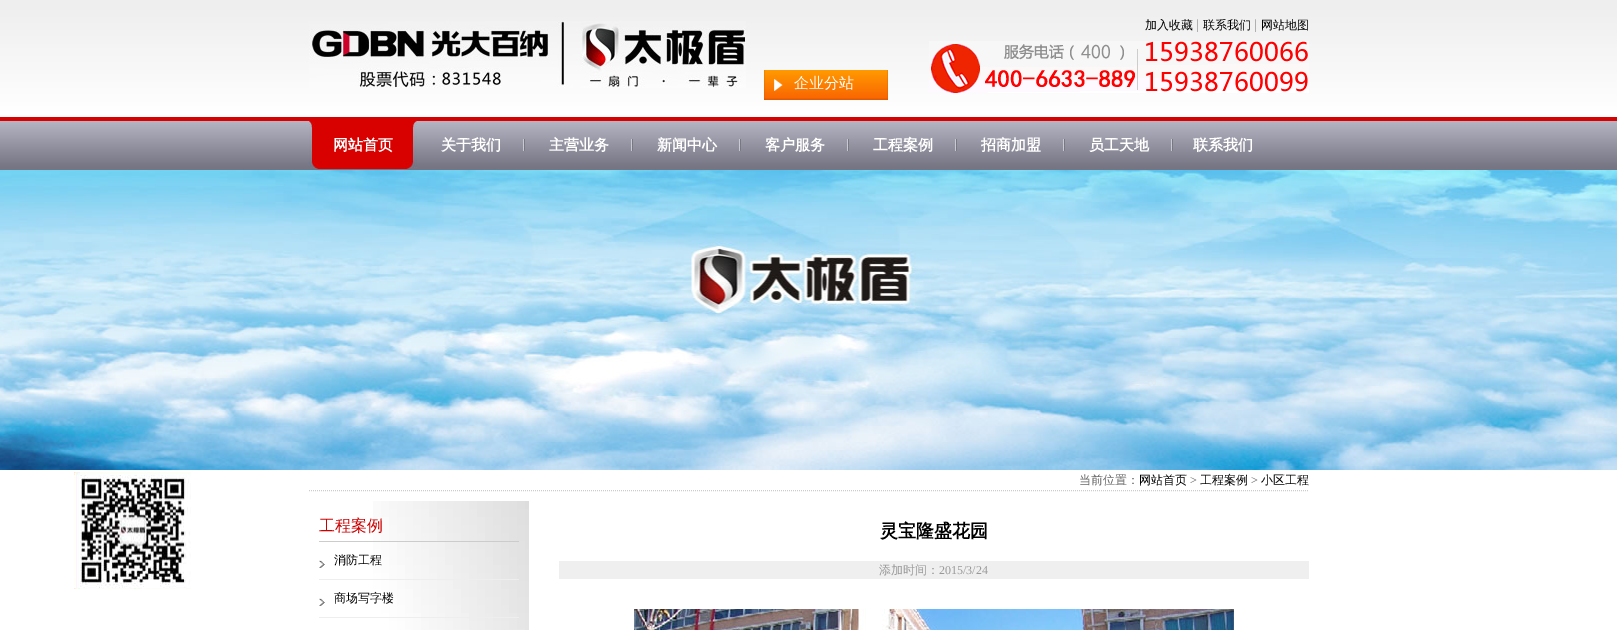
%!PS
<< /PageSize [1617 630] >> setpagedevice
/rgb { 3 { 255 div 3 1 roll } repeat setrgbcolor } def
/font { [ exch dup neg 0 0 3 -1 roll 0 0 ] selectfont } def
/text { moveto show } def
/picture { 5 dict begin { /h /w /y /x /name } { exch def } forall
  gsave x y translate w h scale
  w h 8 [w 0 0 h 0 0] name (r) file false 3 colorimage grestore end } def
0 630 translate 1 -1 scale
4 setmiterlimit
255 255 255 rgb
0 0 1617 630 rectfill
(img_01.rgb) 0 0 1617 170 picture
(img_02.rgb) 309 21 437 67 picture
(img_03.rgb) 764 70 124 30 picture
(img_04.rgb) 929 41 380 52 picture
(img_05.rgb) 309 120 108 49 picture
(img_06.rgb) 523 139 2 12 picture
(img_06.rgb) 631 139 2 12 picture
(img_06.rgb) 739 139 2 12 picture
(img_06.rgb) 847 139 2 12 picture
(img_06.rgb) 955 139 2 12 picture
(img_06.rgb) 1063 139 2 12 picture
(img_06.rgb) 1171 139 2 12 picture
(img_07.rgb) 0 170 1617 300 picture
(img_08.rgb) 74 472 117 117 picture
204 204 204 rgb
[1 1] 0 setdash
309 490.5 moveto 1000 0 rlineto stroke
(img_09.rgb) 373 501 156 129 picture
319 541 200 1 rectfill
(img_10.rgb) 319 560 6 8 picture
238 238 238 rgb
319 579 200 1 rectfill
(img_10.rgb) 319 598 6 8 picture
319 617 200 1 rectfill
239 239 239 rgb
559 561 750 18 rectfill
(img_11.rgb) 634 609 600 21 picture
/WenQuanYiZenHei-Medium 15 font
255 255 255 rgb
(企业分站) 794 88 text
/WenQuanYiZenHei-Medium 12 font
0 0 0 rgb
(加入收藏) 1145 29 text
/LiberationSerif-Regular 14 font
153 153 153 rgb
(|) 1196 29 text
/WenQuanYiZenHei-Medium 12 font
0 0 0 rgb
(联系我们) 1203 29 text
/LiberationSerif-Regular 14 font
153 153 153 rgb
(|) 1254 29 text
/WenQuanYiZenHei-Medium 12 font
0 0 0 rgb
(网站地图) 1261 29 text
/WenQuanYiZenHei-Bold 15 font
255 255 255 rgb
(网站首页) 333 150 text
(关于我们) 441 150 text
(主营业务) 549 150 text
(新闻中心) 657 150 text
(客户服务) 765 150 text
(工程案例) 873 150 text
(招商加盟) 981 150 text
(员工天地) 1089 150 text
(联系我们) 1193 150 text
/WenQuanYiZenHei-Medium 12 font
102 102 102 rgb
(当前位置：) 1079 484 text
0 0 0 rgb
(网站首页) 1139 484 text
/LiberationSerif-Regular 12 font
102 102 102 rgb
(>) 1190 484 text
/WenQuanYiZenHei-Medium 12 font
0 0 0 rgb
(工程案例) 1200 484 text
/LiberationSerif-Regular 12 font
102 102 102 rgb
(>) 1251 484 text
/WenQuanYiZenHei-Medium 12 font
0 0 0 rgb
(小区工程) 1261 484 text
/WenQuanYiZenHei-Medium 16 font
204 0 0 rgb
(工程案例) 319 531 text
/WenQuanYiZenHei-Medium 12 font
0 0 0 rgb
(消防工程) 334 564 text
(商场写字楼) 334 602 text
/WenQuanYiZenHei-Bold 18 font
(灵宝隆盛花园) 880 537 text
/WenQuanYiZenHei-Medium 12 font
153 153 153 rgb
(添加时间：) 879 574 text
/LiberationSerif-Regular 12 font
(2015/3/24) 939 574 text
showpage
